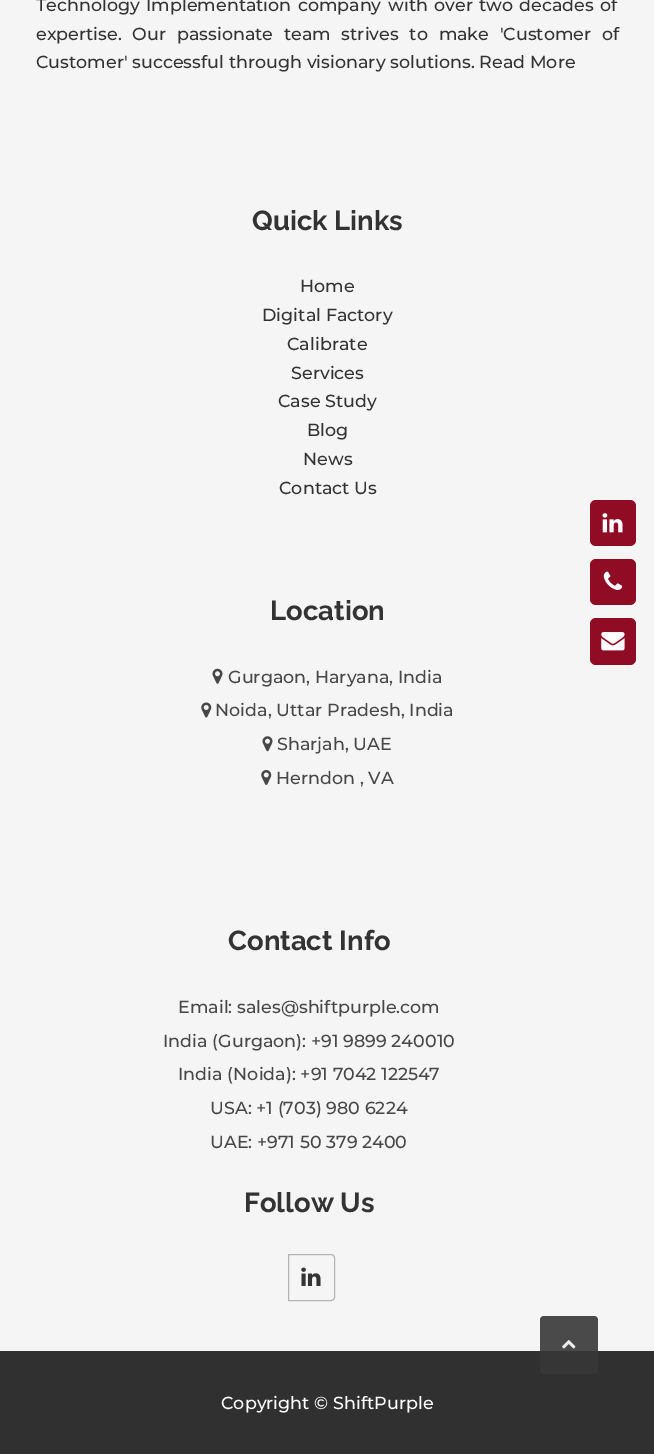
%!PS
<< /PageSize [654 1454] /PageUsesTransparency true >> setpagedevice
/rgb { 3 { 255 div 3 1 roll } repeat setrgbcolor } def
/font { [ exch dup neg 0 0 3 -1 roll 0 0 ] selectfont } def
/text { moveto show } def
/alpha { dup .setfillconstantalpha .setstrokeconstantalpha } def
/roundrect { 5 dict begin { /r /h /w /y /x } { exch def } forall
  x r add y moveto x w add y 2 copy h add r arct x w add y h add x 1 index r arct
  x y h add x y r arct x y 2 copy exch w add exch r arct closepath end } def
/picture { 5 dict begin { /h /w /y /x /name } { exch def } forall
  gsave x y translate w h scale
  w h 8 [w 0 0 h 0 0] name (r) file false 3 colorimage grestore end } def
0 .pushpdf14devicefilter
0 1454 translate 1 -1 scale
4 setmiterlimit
48 48 48 rgb
0 0 654 1454 rectfill
245 245 245 rgb
0 0 654 1351 rectfill
(img_01.rgb) 212 668 11 16 picture
(img_02.rgb) 201 702 11 16 picture
(img_03.rgb) 262 736 11 16 picture
(img_04.rgb) 261 770 11 15 picture
144 12 36 rgb
590 500 46 46 6 roundrect fill
(img_05.rgb) 602 513 21 20 picture
590 559 46 46 6 roundrect fill
(img_06.rgb) 603 571 20 19 picture
590 618 46 47 6 roundrect fill
(img_07.rgb) 601 632 24 19 picture
180 180 180 rgb
288.5 1254.5 moveto 42.5 0 rlineto 2 0 3.5 1.5 3.5 3.5 rcurveto 0 39 rlineto 0 2 -1.5 3.5 -3.5 3.5 rcurveto -42.5 0 rlineto closepath stroke
(img_08.rgb) 301 1267 20 19 picture
0.9 alpha
55 55 55 rgb
540 1316 58 58 4 roundrect fill
1 alpha
(img_09.rgb) 562 1340 14 9 picture
/Montserrat-Medium 17.5 font
51 51 51 rgb
36 11 moveto 1.5 0 32 (Technology Implementation company) widthshow
388 11 moveto 1.5 0 32 (with over two decades of) widthshow
36 40 moveto 6 0 32 (expertise. Our passionate team strives to make 'Customer of) widthshow
(Customer' successful through visionary solutions. Read More) 36 68 text
/Raleway-Bold 27.5 font
(Quick Links) 252 230 text
/Montserrat-Medium 17.5 font
(Home) 300 292 text
(Digital Factory) 262 321 text
(Calibrate) 287 350 text
(Services) 291 379 text
(Case Study) 278 407 text
(Blog) 307 436 text
(News) 303 465 text
(Contact Us) 279 494 text
/Raleway-Bold 27.5 font
(Location) 270 620 text
/Montserrat-Medium 17.5 font
71 71 71 rgb
(Gurgaon, Haryana, India) 228 683 text
(Noida, Uttar Pradesh, India) 215 716 text
(Sharjah, UAE) 277 750 text
(Herndon , VA) 276 784 text
/Raleway-Bold 27.5 font
51 51 51 rgb
(Contact Info) 228 950 text
/Montserrat-Medium 17.5 font
71 71 71 rgb
(Email: sales@shiftpurple.com) 178 1013 text
(India \(Gurgaon\): +91 9899 240010) 163 1047 text
(India \(Noida\): +91 7042 122547) 178 1080 text
(USA: +1 \(703\) 980 6224) 210 1114 text
(UAE: +971 50 379 2400) 210 1148 text
/Raleway-Bold 27.5 font
51 51 51 rgb
(Follow Us) 244 1212 text
/Montserrat-Medium 17.5 font
255 255 255 rgb
(Copyright © ShiftPurple) 221 1409 text
.poppdf14devicefilter showpage
